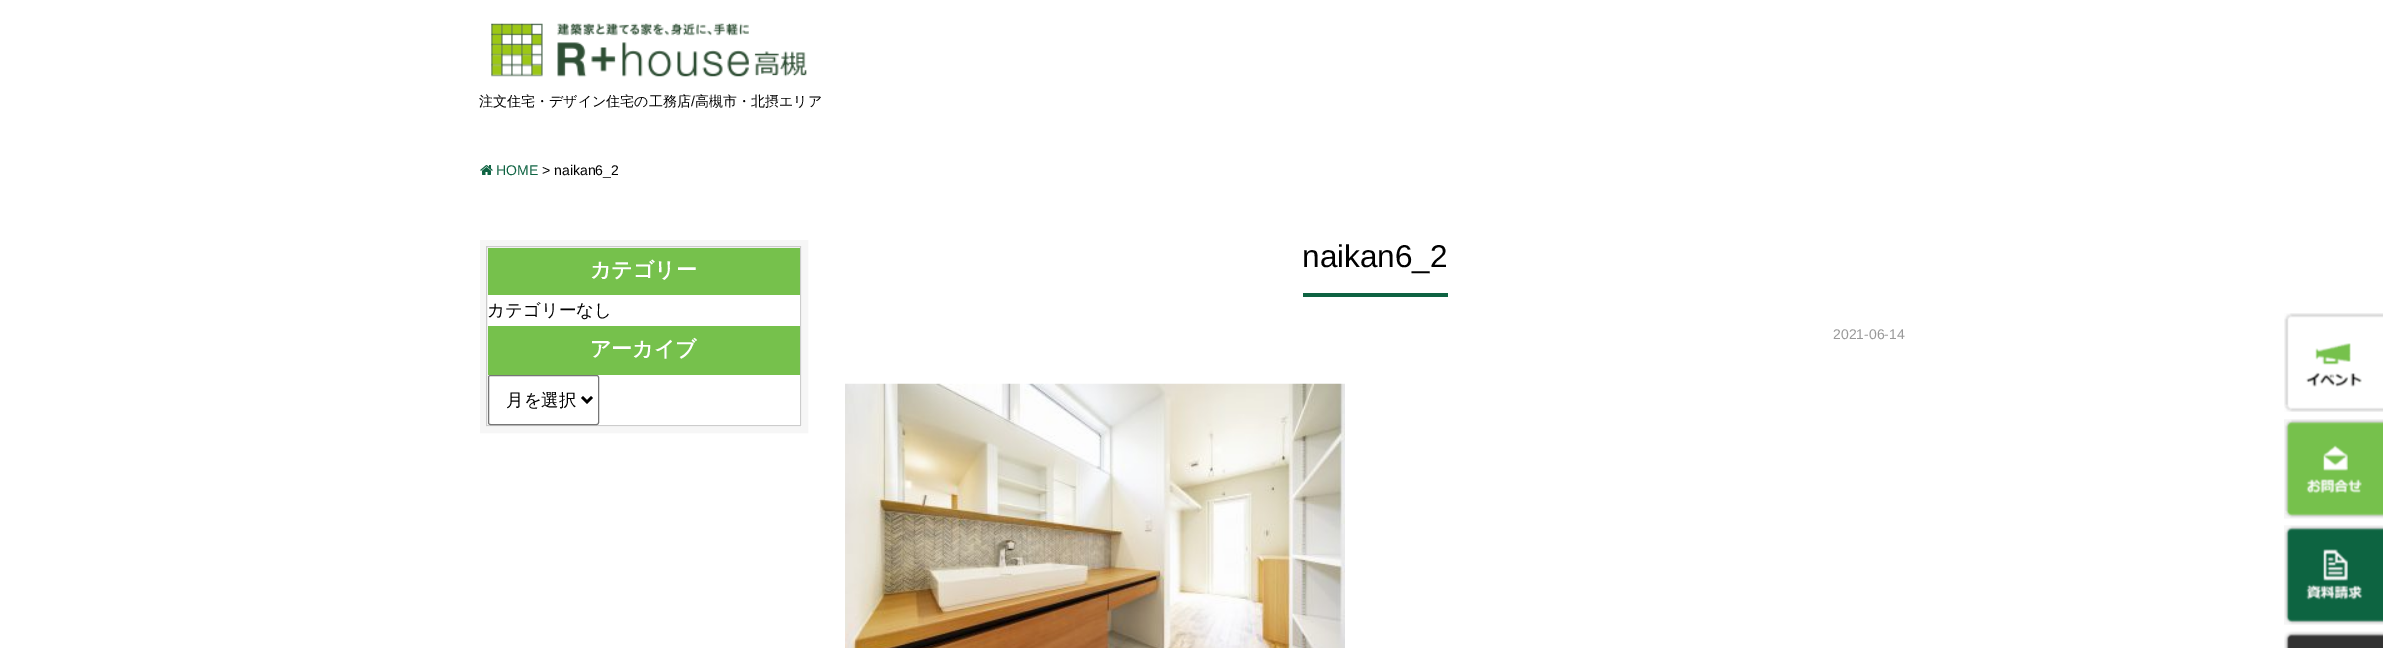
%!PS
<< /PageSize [2383 648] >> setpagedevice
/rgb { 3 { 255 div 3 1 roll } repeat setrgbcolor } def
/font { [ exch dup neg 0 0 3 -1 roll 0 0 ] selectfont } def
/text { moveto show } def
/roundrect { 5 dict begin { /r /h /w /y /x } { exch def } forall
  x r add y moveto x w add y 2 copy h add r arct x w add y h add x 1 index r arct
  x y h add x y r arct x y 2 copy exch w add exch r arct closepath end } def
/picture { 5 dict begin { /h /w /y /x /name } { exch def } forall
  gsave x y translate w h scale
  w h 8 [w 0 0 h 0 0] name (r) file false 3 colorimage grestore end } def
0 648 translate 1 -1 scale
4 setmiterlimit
255 255 255 rgb
0 0 2383 648 rectfill
(img_01.rgb) 491 23 316 54 picture
(img_02.rgb) 480 165 13 10 picture
246 246 246 rgb
6 setlinewidth
483 243 322 187 rectstroke
204 204 204 rgb
1 setlinewidth
486.5 246.5 314 179 rectstroke
118 193 76 rgb
488 248 312 47 rectfill
488 326 312 49 rectfill
118 118 118 rgb
488.5 375.5 110 49 2 roundrect stroke
0 0 0 rgb
2.5 setlinewidth
582 397 moveto 5 5 rlineto 5 -5 rlineto stroke
14 99 66 rgb
1303 293 145 4 rectfill
(img_03.rgb) 845 383 500 265 picture
(img_04.rgb) 2284 313 99 99 picture
(img_08.rgb) 2328 451 20 12 picture
(img_05.rgb) 2284 419 99 100 picture
(img_06.rgb) 2284 525 99 100 picture
(img_07.rgb) 2284 631 99 17 picture
/WenQuanYiZenHei-Medium 14 font
0 0 0 rgb
(注文住宅・デザイン住宅の工務店) 479 106 text
/LiberationSans-Regular 14 font
(/) 691 106 text
/WenQuanYiZenHei-Medium 14 font
(高槻市・北摂エリア) 695 106 text
/LiberationSans-Regular 14 font
14 99 66 rgb
(HOME) 496 175 text
0 0 0 rgb
(> naikan6_2) 542 175 text
/WenQuanYiZenHei-Bold 21 font
255 255 255 rgb
(カテゴリー) 590 277 text
/WenQuanYiZenHei-Medium 17.5 font
0 0 0 rgb
(カテゴリーなし) 487 316 text
/WenQuanYiZenHei-Bold 21 font
255 255 255 rgb
(アーカイブ) 590 356 text
/WenQuanYiZenHei-Medium 17.5 font
0 0 0 rgb
(月を選択) 506 406 text
/LiberationSans-Regular 31.5 font
(naikan6_2) 1302 267 text
/LiberationSans-Regular 14 font
153 153 153 rgb
(2021-06-14) 1833 339 text
showpage
